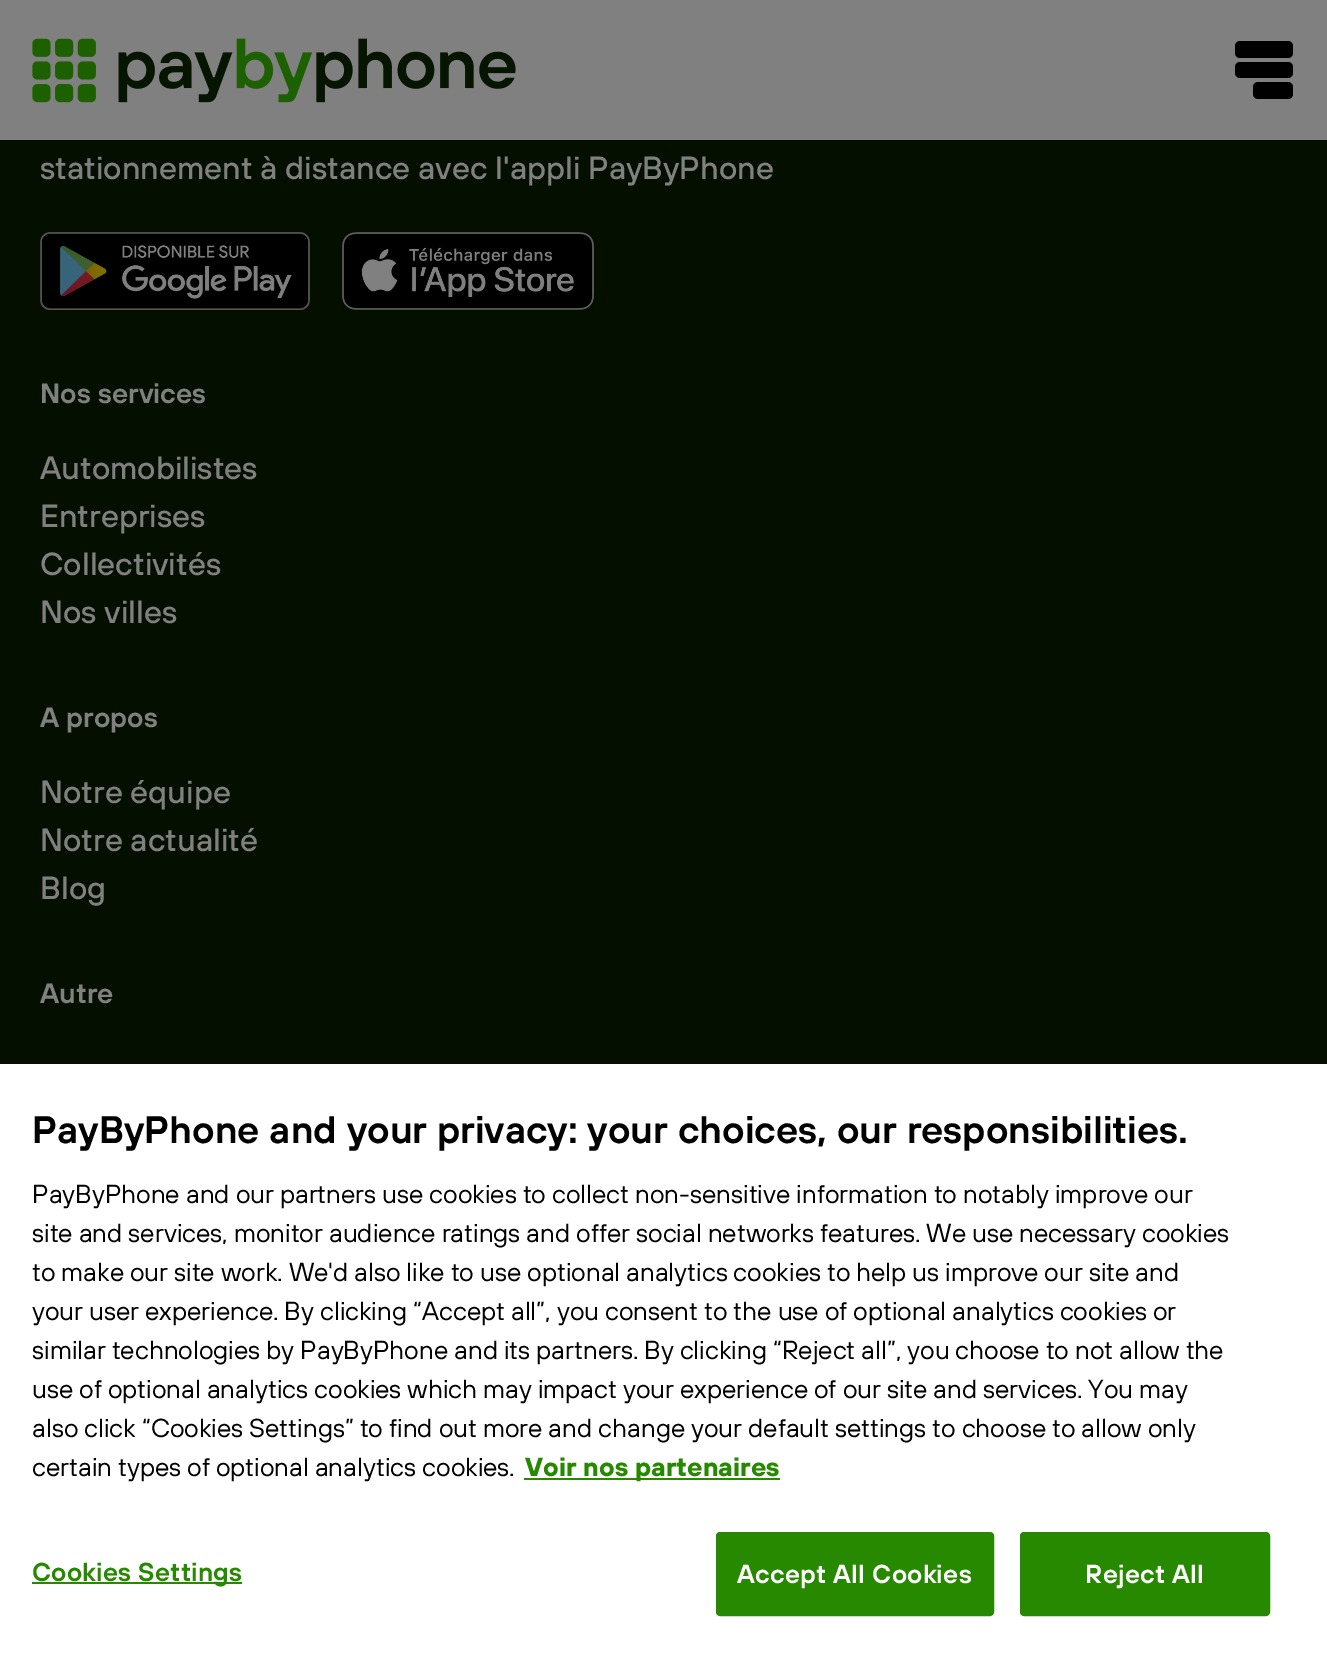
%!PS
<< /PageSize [1327 1655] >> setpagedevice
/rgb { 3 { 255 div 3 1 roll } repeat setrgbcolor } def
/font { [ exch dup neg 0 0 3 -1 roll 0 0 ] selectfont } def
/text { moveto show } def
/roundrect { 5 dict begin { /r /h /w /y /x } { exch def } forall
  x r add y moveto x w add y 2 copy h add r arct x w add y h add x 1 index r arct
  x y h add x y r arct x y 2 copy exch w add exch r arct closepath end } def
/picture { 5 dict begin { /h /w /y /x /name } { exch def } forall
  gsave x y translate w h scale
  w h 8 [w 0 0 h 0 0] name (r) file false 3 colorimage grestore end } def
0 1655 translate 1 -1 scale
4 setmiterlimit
4 15 0 rgb
0 0 1327 1655 rectfill
128 128 128 rgb
0 0 1327 140 rectfill
(img_01.rgb) 32 38 484 65 picture
0 0 0 rgb
1235 41 58 17 5 roundrect fill
1235 62 58 16 5 roundrect fill
1253 82 40 17 5 roundrect fill
(img_02.rgb) 40 232 270 78 picture
(img_03.rgb) 342 232 252 78 picture
255 255 255 rgb
0 1064 1327 591 rectfill
39 137 0 rgb
524 1478 256 2 rectfill
32 1582 210 2 rectfill
717 1533 276 82 3 roundrect gsave fill grestore
2 setlinewidth
stroke
1021 1533 248 82 3 roundrect gsave fill grestore
stroke
/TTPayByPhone-Medium 32 font
128 128 128 rgb
(stationnement à distance avec l'appli PayByPhone) 40 179 text
/TTPayByPhone-SemiBold 28 font
(Nos services) 40 403 text
/TTPayByPhone-Medium 32 font
(Automobilistes) 40 479 text
(Entreprises) 40 527 text
(Collectivités) 40 575 text
(Nos villes) 40 623 text
/TTPayByPhone-SemiBold 28 font
(A propos) 40 727 text
/TTPayByPhone-Medium 32 font
(Notre équipe) 40 803 text
(Notre actualité) 40 851 text
(Blog) 40 899 text
/TTPayByPhone-SemiBold 28 font
(Autre) 40 1003 text
/TTPayByPhone-SemiBold 38.4 font
0 0 0 rgb
(PayByPhone and your privacy: your choices, our responsibilities.) 32 1143 text
/TTPayByPhone-Regular 26 font
(PayByPhone and our partners use cookies to collect non-sensitive information to notably improve our) 32 1203 text
(site and services, monitor audience ratings and offer social networks features. We use necessary cookies) 32 1242 text
(to make our site work. We'd also like to use optional analytics cookies to help us improve our site and) 32 1281 text
(your user experience. By clicking “Accept all”, you consent to the use of optional analytics cookies or) 32 1320 text
(similar technologies by PayByPhone and its partners. By clicking “Reject all”, you choose to not allow the) 32 1359 text
(use of optional analytics cookies which may impact your experience of our site and services. You may) 32 1398 text
(also click “Cookies Settings” to find out more and change your default settings to choose to allow only) 32 1437 text
(certain types of optional analytics cookies.) 32 1476 text
/TTPayByPhone-Bold 26 font
39 137 0 rgb
(Voir nos partenaires) 525 1476 text
/TTPayByPhone-SemiBold 26 font
32 1581 moveto 0.25 0 (Cookies Settings) ashow
255 255 255 rgb
737 1583 moveto 0.25 0 (Accept All Cookies) ashow
1085 1583 moveto 0.25 0 (Reject All) ashow
showpage
